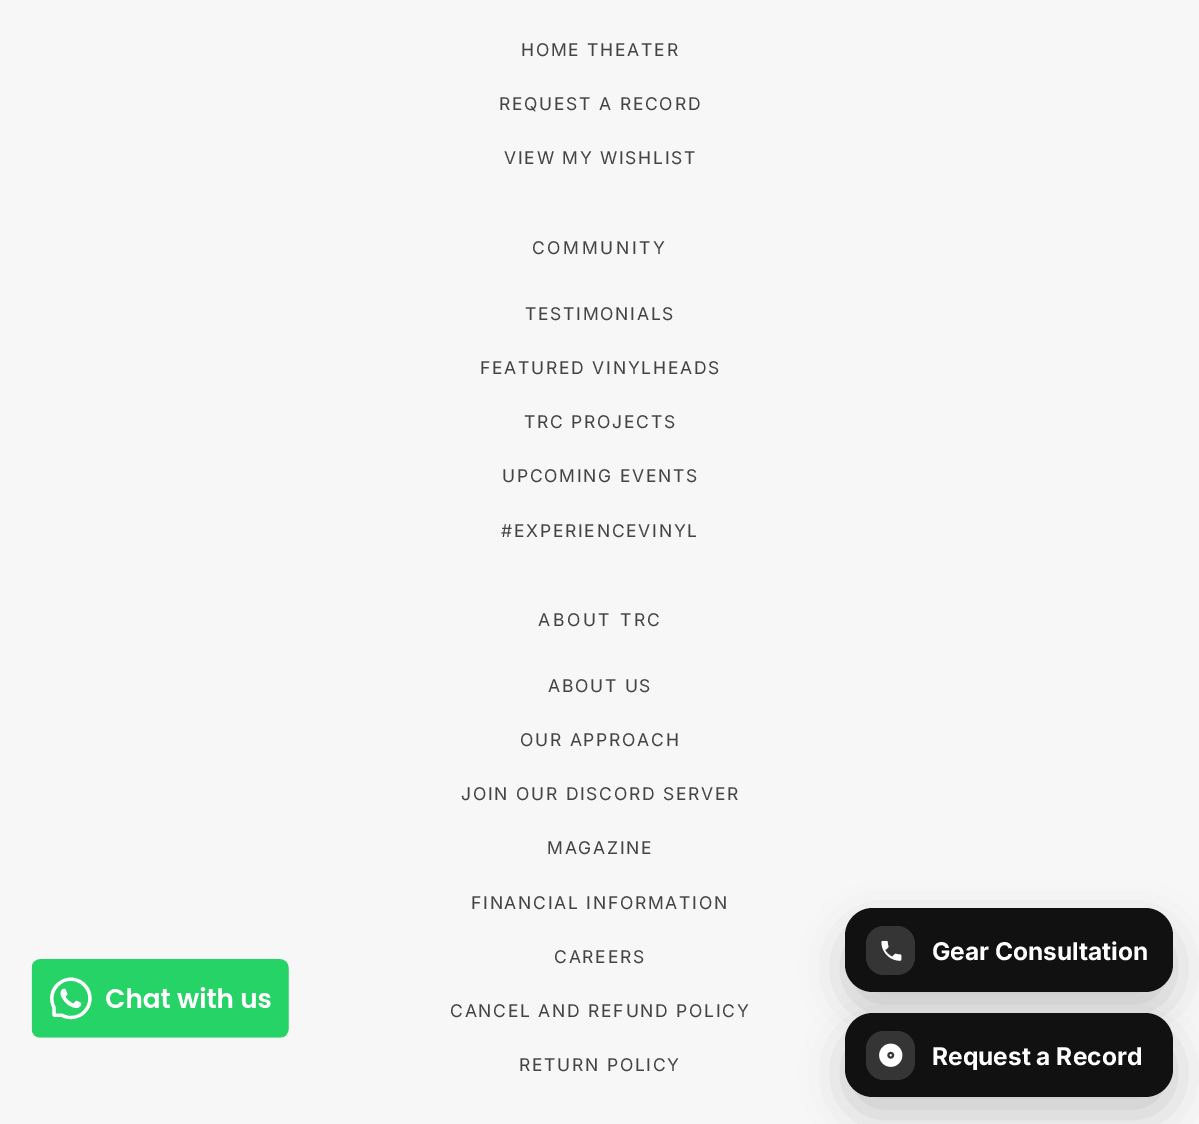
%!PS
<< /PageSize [1199 1124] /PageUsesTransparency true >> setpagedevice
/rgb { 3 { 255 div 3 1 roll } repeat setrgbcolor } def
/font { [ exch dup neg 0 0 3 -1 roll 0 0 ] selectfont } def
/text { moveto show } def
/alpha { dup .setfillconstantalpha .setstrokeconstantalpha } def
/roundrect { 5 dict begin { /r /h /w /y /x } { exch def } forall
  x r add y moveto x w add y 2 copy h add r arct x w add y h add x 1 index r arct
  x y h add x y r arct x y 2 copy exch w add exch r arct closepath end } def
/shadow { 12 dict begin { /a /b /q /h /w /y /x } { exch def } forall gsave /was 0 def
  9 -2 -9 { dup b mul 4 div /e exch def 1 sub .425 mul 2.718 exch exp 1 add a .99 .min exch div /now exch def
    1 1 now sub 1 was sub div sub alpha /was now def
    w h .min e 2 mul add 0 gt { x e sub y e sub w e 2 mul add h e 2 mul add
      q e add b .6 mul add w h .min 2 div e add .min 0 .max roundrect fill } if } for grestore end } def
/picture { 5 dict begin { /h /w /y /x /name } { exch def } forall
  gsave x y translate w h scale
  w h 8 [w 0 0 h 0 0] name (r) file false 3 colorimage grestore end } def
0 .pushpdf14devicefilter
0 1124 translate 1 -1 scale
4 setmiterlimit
247 247 247 rgb
0 0 1199 1124 rectfill
(img_01.rgb) 31 959 258 79 picture
0 0 0 rgb
845 926 328 84 28 21 0.18 shadow
17 17 17 rgb
845 908 328 84 28 roundrect fill
53 53 53 rgb
866 926 49 49 18 roundrect fill
(img_02.rgb) 881 940 21 21 picture
0 0 0 rgb
845 1031 328 84 28 21 0.18 shadow
17 17 17 rgb
845 1013 328 84 28 roundrect fill
53 53 53 rgb
866 1031 49 49 18 roundrect fill
(img_03.rgb) 879 1043 24 24 picture
/Inter-Regular 17.5 font
68 68 68 rgb
521 56 moveto 1.75 0 (HOME THEATER) ashow
499 110 moveto 1.75 0 (REQUEST A RECORD) ashow
504 164 moveto 1.75 0 (VIEW MY WISHLIST) ashow
532 254 moveto 2.6 0 (COMMUNITY) ashow
525 320 moveto 1.75 0 (TESTIMONIALS) ashow
480 374 moveto 1.75 0 (FEATURED VINYLHEADS) ashow
524 428 moveto 1.75 0 (TRC PROJECTS) ashow
502 482 moveto 1.75 0 (UPCOMING EVENTS) ashow
501 537 moveto 1.75 0 (#EXPERIENCEVINYL) ashow
538 626 moveto 2.6 0 (ABOUT TRC) ashow
548 692 moveto 1.75 0 (ABOUT US) ashow
520 746 moveto 1.75 0 (OUR APPROACH) ashow
461 800 moveto 1.75 0 (JOIN OUR DISCORD SERVER) ashow
547 854 moveto 1.75 0 (MAGAZINE) ashow
471 909 moveto 1.75 0 (FINANCIAL INFORMATION) ashow
554 963 moveto 1.75 0 (CAREERS) ashow
450 1017 moveto 1.75 0 (CANCEL AND REFUND POLICY) ashow
519 1071 moveto 1.75 0 (RETURN POLICY) ashow
/Inter-Bold 24.5 font
255 255 255 rgb
(Gear Consultation) 932 960 text
(Request a Record) 932 1065 text
.poppdf14devicefilter showpage
